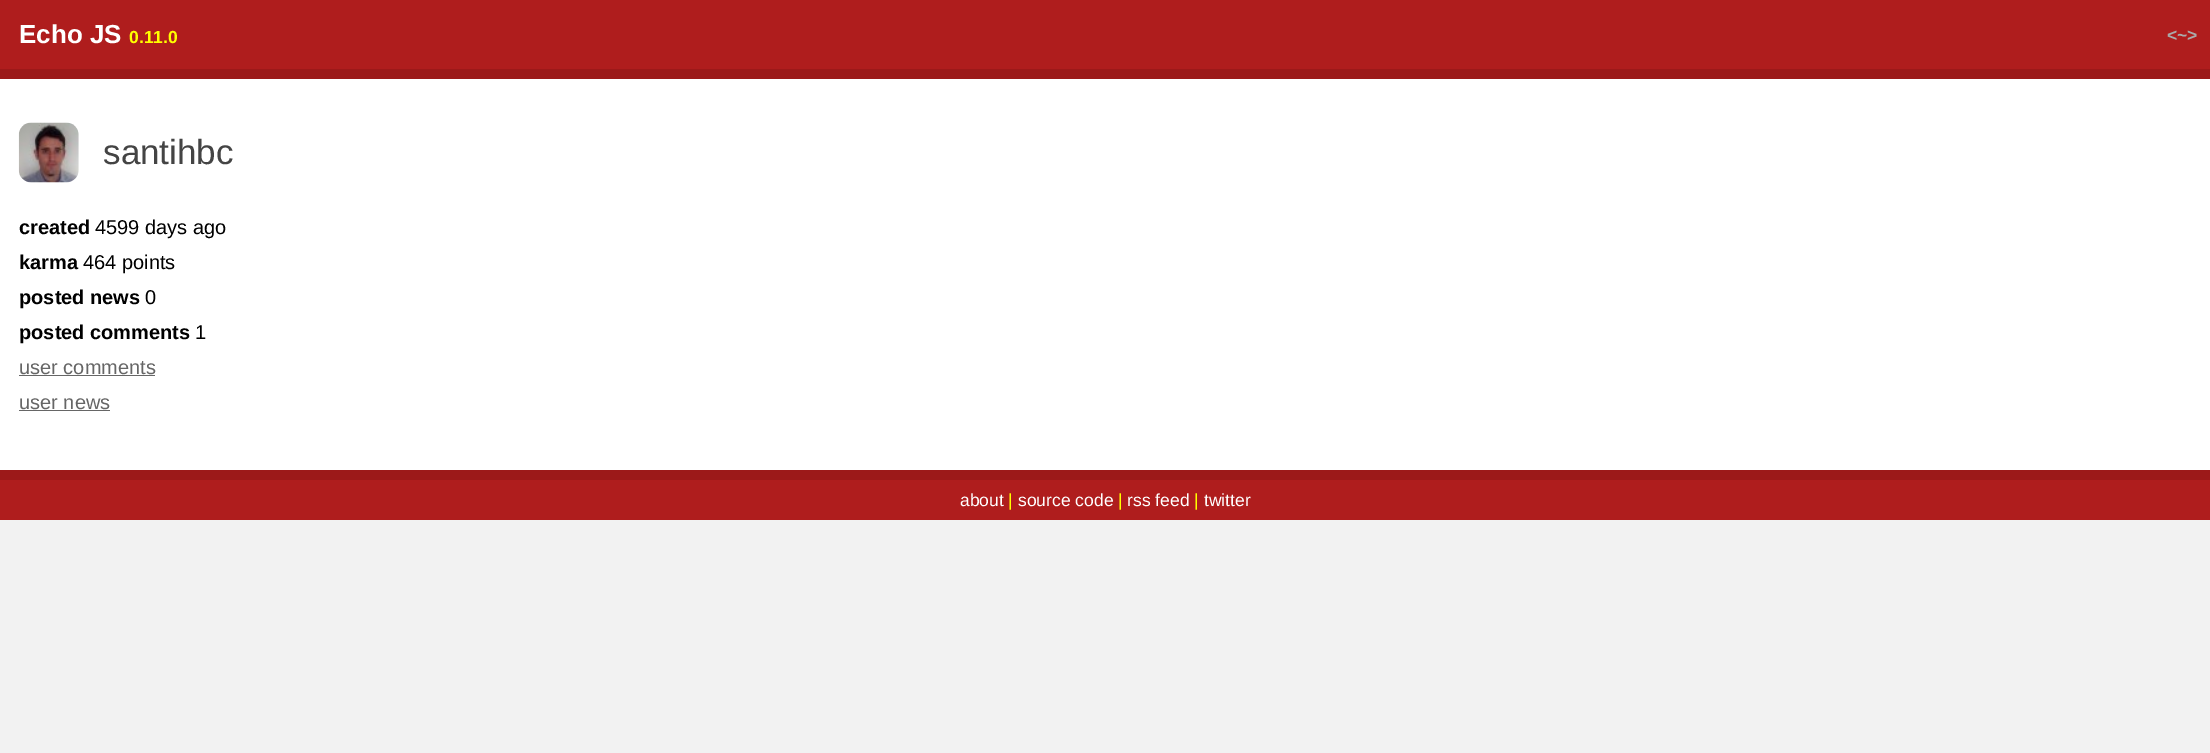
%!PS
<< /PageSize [2210 753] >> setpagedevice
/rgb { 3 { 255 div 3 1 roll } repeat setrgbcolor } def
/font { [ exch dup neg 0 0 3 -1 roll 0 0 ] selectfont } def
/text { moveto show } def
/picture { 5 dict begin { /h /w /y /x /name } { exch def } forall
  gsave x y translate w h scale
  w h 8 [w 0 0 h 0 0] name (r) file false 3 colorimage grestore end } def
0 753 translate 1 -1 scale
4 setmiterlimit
242 242 242 rgb
0 0 2210 753 rectfill
255 255 255 rgb
0 79 2210 391 rectfill
175 29 29 rgb
0 0 2210 69 rectfill
156 25 25 rgb
0 69 2210 10 rectfill
(img_01.rgb) 18 122 61 61 picture
102 102 102 rgb
19 375 136 1 rectfill
19 410 91 1 rectfill
175 29 29 rgb
0 480 2210 40 rectfill
156 25 25 rgb
0 470 2210 10 rectfill
/LiberationSans-Bold 26 font
255 255 255 rgb
(Echo JS) 19 43 text
/LiberationSans-Bold 17.5 font
255 255 0 rgb
(0.11.0) 129 43 text
170 170 170 rgb
(<~>) 2167 41 text
/LiberationSans-Regular 35 font
68 68 68 rgb
(santihbc) 103 164 text
/LiberationSans-Bold 20 font
0 0 0 rgb
(created) 19 234 text
/LiberationSans-Regular 20 font
(4599 days ago) 95 234 text
/LiberationSans-Bold 20 font
(karma) 19 269 text
/LiberationSans-Regular 20 font
(464 points) 83 269 text
/LiberationSans-Bold 20 font
(posted news) 19 304 text
/LiberationSans-Regular 20 font
(0) 145 304 text
/LiberationSans-Bold 20 font
(posted comments) 19 339 text
/LiberationSans-Regular 20 font
(1) 195 339 text
102 102 102 rgb
(user comments) 19 374 text
(user news) 19 409 text
/LiberationSans-Regular 17.5 font
255 255 255 rgb
(about) 960 506 text
255 255 0 rgb
(|) 1008 506 text
255 255 255 rgb
(source code) 1018 506 text
255 255 0 rgb
(|) 1118 506 text
255 255 255 rgb
(rss feed) 1127 506 text
255 255 0 rgb
(|) 1194 506 text
255 255 255 rgb
(twitter) 1204 506 text
showpage
